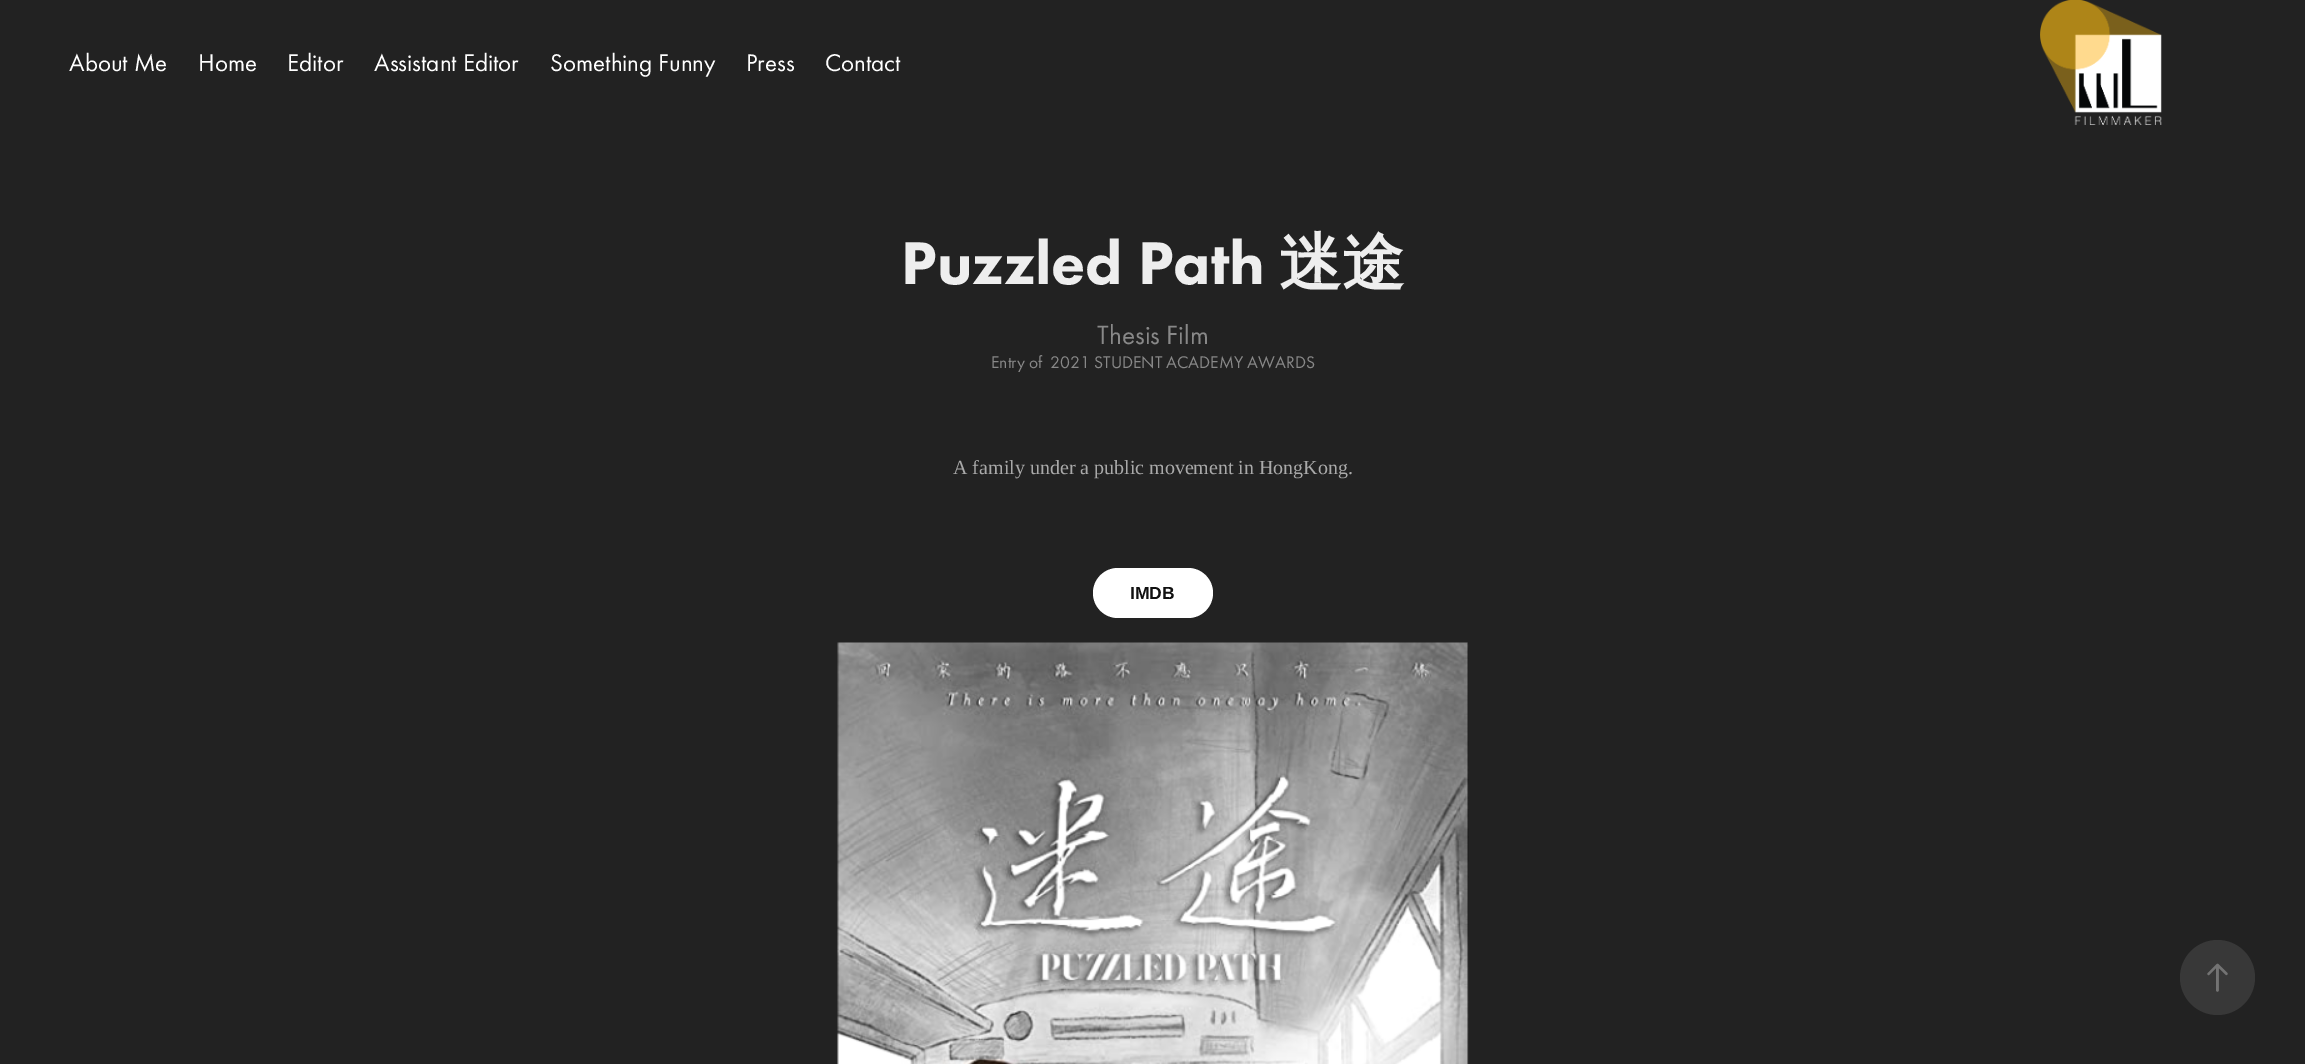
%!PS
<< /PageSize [2305 1064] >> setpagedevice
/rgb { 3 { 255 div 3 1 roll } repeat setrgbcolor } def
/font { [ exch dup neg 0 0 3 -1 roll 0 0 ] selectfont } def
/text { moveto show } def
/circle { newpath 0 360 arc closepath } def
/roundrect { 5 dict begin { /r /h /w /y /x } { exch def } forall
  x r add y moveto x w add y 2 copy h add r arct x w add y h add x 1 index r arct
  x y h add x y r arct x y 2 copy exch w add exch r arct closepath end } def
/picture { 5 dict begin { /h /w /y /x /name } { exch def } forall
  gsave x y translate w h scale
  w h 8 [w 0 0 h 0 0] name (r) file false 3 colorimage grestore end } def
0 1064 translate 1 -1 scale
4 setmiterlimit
34 34 34 rgb
0 0 2305 1064 rectfill
(img_01.rgb) 2040 0 122 125 picture
255 255 255 rgb
1093 568 120 50 25 roundrect fill
(img_02.rgb) 837 642 632 422 picture
56 56 56 rgb
2217.5 977.5 37.5 circle fill
(img_03.rgb) 2207 963 21 29 picture
/FuturaPT-Regular 25 font
255 255 255 rgb
(About Me) 69 71 text
(Home) 198 71 text
(Editor) 287 71 text
(Assistant Editor) 374 71 text
(Something Funny) 550 71 text
(Press) 746 71 text
(Contact) 825 71 text
/FuturaPT-Black 62.5 font
238 238 238 rgb
(Puzzled Path) 901 284 text
/WenQuanYiZenHei-Bold 62.5 font
(迷途) 1279 284 text
/FuturaPT-Regular 27.5 font
136 136 136 rgb
(Thesis Film) 1097 344 text
/FuturaPT-Regular 17.5 font
(Entry of  2021 STUDENT ACADEMY AWARDS) 991 368 text
/LiberationSerif-Regular 20 font
169 169 169 rgb
(A family under a public movement in HongKong.) 953 474 text
/LiberationSans-Bold 17.5 font
17 17 17 rgb
(IMDB) 1130 599 text
showpage
